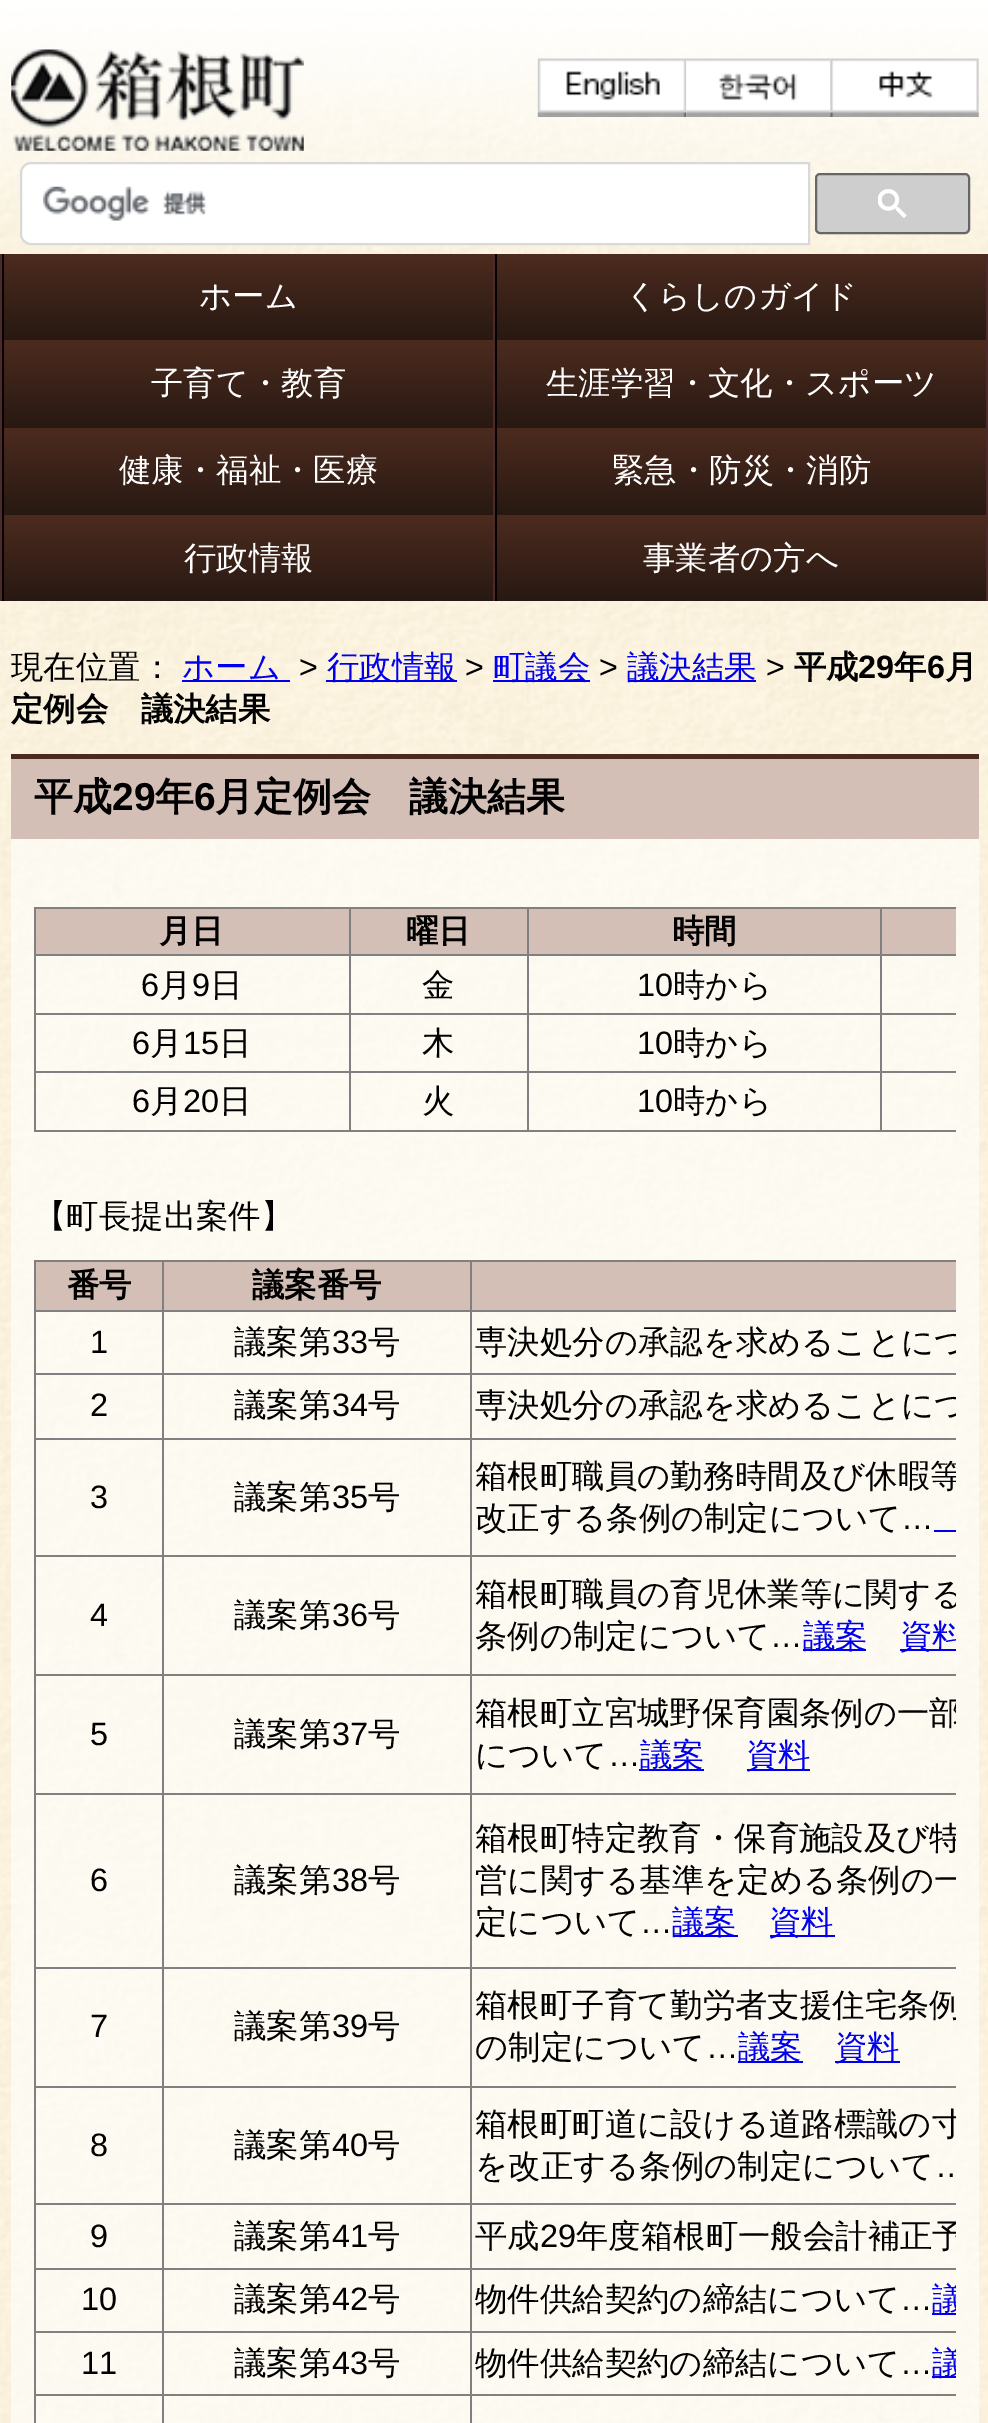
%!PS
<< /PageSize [988 2423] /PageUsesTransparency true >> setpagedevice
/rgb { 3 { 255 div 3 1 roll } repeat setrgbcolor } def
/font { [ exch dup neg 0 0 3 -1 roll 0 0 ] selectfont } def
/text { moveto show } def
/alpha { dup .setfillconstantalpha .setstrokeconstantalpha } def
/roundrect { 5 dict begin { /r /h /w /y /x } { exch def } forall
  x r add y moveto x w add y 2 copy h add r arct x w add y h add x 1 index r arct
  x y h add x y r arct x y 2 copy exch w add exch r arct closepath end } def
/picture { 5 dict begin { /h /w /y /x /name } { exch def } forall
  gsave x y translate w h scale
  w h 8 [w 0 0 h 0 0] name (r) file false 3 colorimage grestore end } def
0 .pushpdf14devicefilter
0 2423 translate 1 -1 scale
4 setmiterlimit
255 255 255 rgb
0 0 988 2423 rectfill
(img_01.rgb) 0 0 988 2423 picture
(img_02.rgb) 11 49 293 102 picture
(img_03.rgb) 537 58 150 59 picture
(img_04.rgb) 686 58 145 59 picture
(img_05.rgb) 830 58 149 59 picture
31 163 moveto 778 0 rlineto 0 81 rlineto -778 0 rlineto -5.5 0 -10 -4.5 -10 -10 rcurveto 0 -61 rlineto 0 -5.5 4.5 -10 10 -10 rcurveto closepath gsave fill grestore
217 217 217 rgb
2 setlinewidth
stroke
(img_06.rgb) 42 186 165 35 picture
206 206 206 rgb
816 174 153 59 4 roundrect gsave fill grestore
102 102 102 rgb
stroke
(img_07.rgb) 878 189 29 29 picture
77 42 42 rgb
0 254 2 347 rectfill
gsave 4 254 moveto 489 0 rlineto 0 86 rlineto -489 0 rlineto closepath clip newpath
<< /ShadingType 2 /ColorSpace /DeviceRGB /Coords [249 254 249 340] /Extend [true true] /Function << /FunctionType 2 /Domain [0 1] /C0 [0.302 0.169 0.122] /C1 [0.153 0.098 0.071] /N 1 >> >> shfill grestore
493 254 2 347 rectfill
7 0 0 rgb
2 254 2 347 rectfill
gsave 497 254 moveto 489 0 rlineto 0 86 rlineto -489 0 rlineto closepath clip newpath
<< /ShadingType 2 /ColorSpace /DeviceRGB /Coords [741 254 741 340] /Extend [true true] /Function << /FunctionType 2 /Domain [0 1] /C0 [0.302 0.169 0.122] /C1 [0.153 0.098 0.071] /N 1 >> >> shfill grestore
77 42 42 rgb
986 254 2 347 rectfill
7 0 0 rgb
495 254 2 347 rectfill
gsave 4 340 moveto 489 0 rlineto 0 88 rlineto -489 0 rlineto closepath clip newpath
<< /ShadingType 2 /ColorSpace /DeviceRGB /Coords [249 340 249 428] /Extend [true true] /Function << /FunctionType 2 /Domain [0 1] /C0 [0.302 0.169 0.122] /C1 [0.153 0.098 0.071] /N 1 >> >> shfill grestore
gsave 497 340 moveto 489 0 rlineto 0 88 rlineto -489 0 rlineto closepath clip newpath
<< /ShadingType 2 /ColorSpace /DeviceRGB /Coords [741 340 741 428] /Extend [true true] /Function << /FunctionType 2 /Domain [0 1] /C0 [0.302 0.169 0.122] /C1 [0.153 0.098 0.071] /N 1 >> >> shfill grestore
gsave 4 428 moveto 489 0 rlineto 0 87 rlineto -489 0 rlineto closepath clip newpath
<< /ShadingType 2 /ColorSpace /DeviceRGB /Coords [249 428 249 515] /Extend [true true] /Function << /FunctionType 2 /Domain [0 1] /C0 [0.302 0.169 0.122] /C1 [0.153 0.098 0.071] /N 1 >> >> shfill grestore
gsave 497 428 moveto 489 0 rlineto 0 87 rlineto -489 0 rlineto closepath clip newpath
<< /ShadingType 2 /ColorSpace /DeviceRGB /Coords [741 428 741 515] /Extend [true true] /Function << /FunctionType 2 /Domain [0 1] /C0 [0.302 0.169 0.122] /C1 [0.153 0.098 0.071] /N 1 >> >> shfill grestore
gsave 4 515 moveto 489 0 rlineto 0 86 rlineto -489 0 rlineto closepath clip newpath
<< /ShadingType 2 /ColorSpace /DeviceRGB /Coords [249 515 249 601] /Extend [true true] /Function << /FunctionType 2 /Domain [0 1] /C0 [0.302 0.169 0.122] /C1 [0.153 0.098 0.071] /N 1 >> >> shfill grestore
gsave 497 515 moveto 489 0 rlineto 0 86 rlineto -489 0 rlineto closepath clip newpath
<< /ShadingType 2 /ColorSpace /DeviceRGB /Coords [741 515 741 601] /Extend [true true] /Function << /FunctionType 2 /Domain [0 1] /C0 [0.302 0.169 0.122] /C1 [0.153 0.098 0.071] /N 1 >> >> shfill grestore
0 0 238 rgb
182 680 108 2 rectfill
326 680 131 2 rectfill
493 680 97 2 rectfill
628 680 128 2 rectfill
0.6 alpha
255 255 255 rgb
11 839 968 1584 rectfill
1 alpha
212 191 183 rgb
11 759 968 80 rectfill
74 42 30 rgb
11 754 968 5 rectfill
128 128 128 rgb
34 907 922 2 rectfill
34 1130 922 2 rectfill
34 907 2 225 rectfill
212 191 182 rgb
36 909 313 45 rectfill
351 909 176 45 rectfill
128 128 128 rgb
880 954 76 2 rectfill
880 1013 76 2 rectfill
880 1071 76 2 rectfill
880 1071 2 61 rectfill
527 1071 355 2 rectfill
880 1013 2 60 rectfill
527 1013 355 2 rectfill
880 954 2 61 rectfill
527 954 355 2 rectfill
527 1071 2 61 rectfill
349 1071 180 2 rectfill
527 1013 2 60 rectfill
349 1013 180 2 rectfill
527 954 2 61 rectfill
349 954 180 2 rectfill
349 1071 2 61 rectfill
34 1071 317 2 rectfill
349 1013 2 60 rectfill
34 1013 317 2 rectfill
349 954 2 61 rectfill
34 954 317 2 rectfill
349 907 2 49 rectfill
212 191 182 rgb
529 909 351 45 rectfill
128 128 128 rgb
527 907 2 49 rectfill
212 191 182 rgb
882 909 74 45 rectfill
128 128 128 rgb
880 907 2 49 rectfill
34 1260 922 2 rectfill
34 1260 2 1163 rectfill
212 191 182 rgb
36 1262 126 48 rectfill
164 1262 792 48 rectfill
128 128 128 rgb
470 1310 486 2 rectfill
470 1373 486 2 rectfill
470 1438 486 2 rectfill
470 1555 486 2 rectfill
470 1674 486 2 rectfill
470 1793 486 2 rectfill
470 1967 486 2 rectfill
470 2086 486 2 rectfill
470 2203 486 2 rectfill
470 2268 486 2 rectfill
470 2331 486 2 rectfill
470 2394 486 2 rectfill
470 2394 2 29 rectfill
162 2394 311 2 rectfill
470 2331 2 65 rectfill
162 2331 311 2 rectfill
470 2268 2 65 rectfill
162 2268 311 2 rectfill
470 2203 2 67 rectfill
162 2203 311 2 rectfill
470 2086 2 119 rectfill
162 2086 311 2 rectfill
470 1967 2 121 rectfill
162 1967 311 2 rectfill
470 1793 2 176 rectfill
162 1793 311 2 rectfill
470 1674 2 122 rectfill
162 1674 311 2 rectfill
470 1555 2 121 rectfill
162 1555 311 2 rectfill
470 1438 2 119 rectfill
162 1438 311 2 rectfill
470 1373 2 67 rectfill
162 1373 311 2 rectfill
470 1310 2 65 rectfill
162 1310 311 2 rectfill
162 2394 2 29 rectfill
34 2394 130 2 rectfill
162 2331 2 65 rectfill
34 2331 130 2 rectfill
162 2268 2 65 rectfill
34 2268 130 2 rectfill
162 2203 2 67 rectfill
34 2203 130 2 rectfill
162 2086 2 119 rectfill
34 2086 130 2 rectfill
162 1967 2 121 rectfill
34 1967 130 2 rectfill
162 1793 2 176 rectfill
34 1793 130 2 rectfill
162 1674 2 122 rectfill
34 1674 130 2 rectfill
162 1555 2 121 rectfill
34 1555 130 2 rectfill
162 1438 2 119 rectfill
34 1438 130 2 rectfill
162 1373 2 67 rectfill
34 1373 130 2 rectfill
162 1310 2 65 rectfill
34 1310 130 2 rectfill
162 1260 2 52 rectfill
470 1260 2 52 rectfill
0 0 238 rgb
934 1530 22 2 rectfill
803 1649 63 2 rectfill
900 1649 56 2 rectfill
639 1769 65 2 rectfill
747 1769 63 2 rectfill
673 1935 65 2 rectfill
770 1935 65 2 rectfill
738 2061 65 2 rectfill
835 2061 65 2 rectfill
932 2313 24 2 rectfill
932 2376 24 2 rectfill
/WenQuanYiZenHei-Medium 32.4 font
255 255 255 rgb
(ホーム) 199 307 text
(くらしのガイド) 625 307 text
(子育て・教育) 151 394 text
(生涯学習・文化・スポーツ) 546 394 text
(健康・福祉・医療) 119 481 text
(緊急・防災・消防) 612 481 text
(行政情報) 184 569 text
(事業者の方へ) 643 569 text
0 0 0 rgb
(現在位置：) 11 678 text
0 0 238 rgb
(ホーム) 182 678 text
/LiberationSans-Regular 32.4 font
0 0 0 rgb
(>) 299 678 text
/WenQuanYiZenHei-Medium 32.4 font
0 0 238 rgb
(行政情報) 327 678 text
/LiberationSans-Regular 32.4 font
0 0 0 rgb
(>) 465 678 text
/WenQuanYiZenHei-Medium 32.4 font
0 0 238 rgb
(町議会) 493 678 text
/LiberationSans-Regular 32.4 font
0 0 0 rgb
(>) 599 678 text
/WenQuanYiZenHei-Medium 32.4 font
0 0 238 rgb
(議決結果) 627 678 text
/LiberationSans-Regular 32.4 font
0 0 0 rgb
(>) 766 678 text
/WenQuanYiZenHei-Bold 32.4 font
(平成) 794 678 text
/LiberationSans-Bold 32.4 font
(29) 858 678 text
/WenQuanYiZenHei-Bold 32.4 font
(年) 894 678 text
/LiberationSans-Bold 32.4 font
(6) 927 678 text
/WenQuanYiZenHei-Bold 32.4 font
(月) 945 678 text
(定例会　議決結果) 11 720 text
/WenQuanYiZenHei-Bold 38.9 font
(平成) 34 810 text
/LiberationSans-Bold 38.9 font
(29) 112 810 text
/WenQuanYiZenHei-Bold 38.9 font
(年) 155 810 text
/LiberationSans-Bold 38.9 font
(6) 194 810 text
/WenQuanYiZenHei-Bold 38.9 font
(月定例会　議決結果) 215 810 text
/WenQuanYiZenHei-Bold 32.4 font
(月日) 159 942 text
(曜日) 406 942 text
(時間) 672 942 text
/LiberationSans-Regular 32.4 font
(6) 141 996 text
/WenQuanYiZenHei-Medium 32.4 font
(月) 159 996 text
/LiberationSans-Regular 32.4 font
(9) 192 996 text
/WenQuanYiZenHei-Medium 32.4 font
(日) 210 996 text
(金) 422 996 text
/LiberationSans-Regular 32.4 font
(10) 637 996 text
/WenQuanYiZenHei-Medium 32.4 font
(時から) 673 996 text
/LiberationSans-Regular 32.4 font
(6) 132 1054 text
/WenQuanYiZenHei-Medium 32.4 font
(月) 150 1054 text
/LiberationSans-Regular 32.4 font
(15) 183 1054 text
/WenQuanYiZenHei-Medium 32.4 font
(日) 219 1054 text
(木) 422 1054 text
/LiberationSans-Regular 32.4 font
(10) 637 1054 text
/WenQuanYiZenHei-Medium 32.4 font
(時から) 673 1054 text
/LiberationSans-Regular 32.4 font
(6) 132 1112 text
/WenQuanYiZenHei-Medium 32.4 font
(月) 150 1112 text
/LiberationSans-Regular 32.4 font
(20) 183 1112 text
/WenQuanYiZenHei-Medium 32.4 font
(日) 219 1112 text
(火) 422 1112 text
/LiberationSans-Regular 32.4 font
(10) 637 1112 text
/WenQuanYiZenHei-Medium 32.4 font
(時から) 673 1112 text
(【町長提出案件】) 34 1227 text
/WenQuanYiZenHei-Bold 32.4 font
(番号) 67 1296 text
(議案番号) 252 1296 text
/LiberationSans-Regular 32.4 font
(1) 90 1353 text
/WenQuanYiZenHei-Medium 32.4 font
(議案第) 234 1353 text
/LiberationSans-Regular 32.4 font
(33) 332 1353 text
/WenQuanYiZenHei-Medium 32.4 font
(号) 368 1353 text
gsave
34 1260 922 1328 rectclip
(専決処分の承認を求めることにつ) 475 1353 text
grestore
/LiberationSans-Regular 32.4 font
(2) 90 1416 text
/WenQuanYiZenHei-Medium 32.4 font
(議案第) 234 1416 text
/LiberationSans-Regular 32.4 font
(34) 332 1416 text
/WenQuanYiZenHei-Medium 32.4 font
(号) 368 1416 text
gsave
34 1260 922 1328 rectclip
(専決処分の承認を求めることにつ) 475 1416 text
grestore
/LiberationSans-Regular 32.4 font
(3) 90 1508 text
/WenQuanYiZenHei-Medium 32.4 font
(議案第) 234 1508 text
/LiberationSans-Regular 32.4 font
(35) 332 1508 text
/WenQuanYiZenHei-Medium 32.4 font
(号) 368 1508 text
gsave
34 1260 922 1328 rectclip
(箱根町職員の勤務時間及び休暇等) 475 1487 text
grestore
(改正する条例の制定について) 475 1529 text
/LiberationSans-Regular 32.4 font
(…) 901 1529 text
(4) 90 1626 text
/WenQuanYiZenHei-Medium 32.4 font
(議案第) 234 1626 text
/LiberationSans-Regular 32.4 font
(36) 332 1626 text
/WenQuanYiZenHei-Medium 32.4 font
(号) 368 1626 text
gsave
34 1260 922 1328 rectclip
(箱根町職員の育児休業等に関する) 475 1605 text
grestore
(条例の制定について) 475 1647 text
/LiberationSans-Regular 32.4 font
(…) 770 1647 text
/WenQuanYiZenHei-Medium 32.4 font
0 0 238 rgb
(議案) 803 1647 text
gsave
34 1260 922 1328 rectclip
(資料) 900 1647 text
grestore
/LiberationSans-Regular 32.4 font
0 0 0 rgb
(5) 90 1745 text
/WenQuanYiZenHei-Medium 32.4 font
(議案第) 234 1745 text
/LiberationSans-Regular 32.4 font
(37) 332 1745 text
/WenQuanYiZenHei-Medium 32.4 font
(号) 368 1745 text
gsave
34 1260 922 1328 rectclip
(箱根町立宮城野保育園条例の一部) 475 1724 text
grestore
(について) 475 1766 text
/LiberationSans-Regular 32.4 font
(…) 608 1766 text
/WenQuanYiZenHei-Medium 32.4 font
0 0 238 rgb
(議案) 640 1766 text
(資料) 746 1766 text
/LiberationSans-Regular 32.4 font
0 0 0 rgb
(6) 90 1891 text
/WenQuanYiZenHei-Medium 32.4 font
(議案第) 234 1891 text
/LiberationSans-Regular 32.4 font
(38) 332 1891 text
/WenQuanYiZenHei-Medium 32.4 font
(号) 368 1891 text
gsave
34 1260 922 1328 rectclip
(箱根町特定教育・保育施設及び特) 475 1849 text
(営に関する基準を定める条例の一) 475 1891 text
grestore
(定について) 475 1933 text
/LiberationSans-Regular 32.4 font
(…) 640 1933 text
/WenQuanYiZenHei-Medium 32.4 font
0 0 238 rgb
(議案) 672 1933 text
(資料) 769 1933 text
/LiberationSans-Regular 32.4 font
0 0 0 rgb
(7) 90 2037 text
/WenQuanYiZenHei-Medium 32.4 font
(議案第) 234 2037 text
/LiberationSans-Regular 32.4 font
(39) 332 2037 text
/WenQuanYiZenHei-Medium 32.4 font
(号) 368 2037 text
gsave
34 1260 922 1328 rectclip
(箱根町子育て勤労者支援住宅条例) 475 2016 text
grestore
(の制定について) 475 2058 text
/LiberationSans-Regular 32.4 font
(…) 706 2058 text
/WenQuanYiZenHei-Medium 32.4 font
0 0 238 rgb
(議案) 738 2058 text
(資料) 835 2058 text
/LiberationSans-Regular 32.4 font
0 0 0 rgb
(8) 90 2156 text
/WenQuanYiZenHei-Medium 32.4 font
(議案第) 234 2156 text
/LiberationSans-Regular 32.4 font
(40) 332 2156 text
/WenQuanYiZenHei-Medium 32.4 font
(号) 368 2156 text
gsave
34 1260 922 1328 rectclip
(箱根町町道に設ける道路標識の寸) 475 2135 text
grestore
(を改正する条例の制定について) 475 2177 text
gsave
34 1260 922 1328 rectclip
/LiberationSans-Regular 32.4 font
(…) 935 2177 text
grestore
/LiberationSans-Regular 32.4 font
(9) 90 2247 text
/WenQuanYiZenHei-Medium 32.4 font
(議案第) 234 2247 text
/LiberationSans-Regular 32.4 font
(41) 332 2247 text
/WenQuanYiZenHei-Medium 32.4 font
(号) 368 2247 text
(平成) 475 2247 text
/LiberationSans-Regular 32.4 font
(29) 540 2247 text
gsave
34 1260 922 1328 rectclip
/WenQuanYiZenHei-Medium 32.4 font
(年度箱根町一般会計補正予) 576 2247 text
grestore
(10) 81 2310 text
/WenQuanYiZenHei-Medium 32.4 font
(議案第) 234 2310 text
/LiberationSans-Regular 32.4 font
(42) 332 2310 text
/WenQuanYiZenHei-Medium 32.4 font
(号) 368 2310 text
(物件供給契約の締結について) 475 2310 text
/LiberationSans-Regular 32.4 font
(…) 900 2310 text
gsave
34 1260 922 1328 rectclip
/WenQuanYiZenHei-Medium 32.4 font
0 0 238 rgb
(議) 932 2310 text
grestore
(11) 81 2374 text
/WenQuanYiZenHei-Medium 32.4 font
(議案第) 234 2374 text
/LiberationSans-Regular 32.4 font
(43) 332 2374 text
/WenQuanYiZenHei-Medium 32.4 font
(号) 368 2374 text
(物件供給契約の締結について) 475 2374 text
/LiberationSans-Regular 32.4 font
(…) 900 2374 text
gsave
34 1260 922 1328 rectclip
/WenQuanYiZenHei-Medium 32.4 font
0 0 238 rgb
(議) 932 2374 text
grestore
.poppdf14devicefilter showpage
